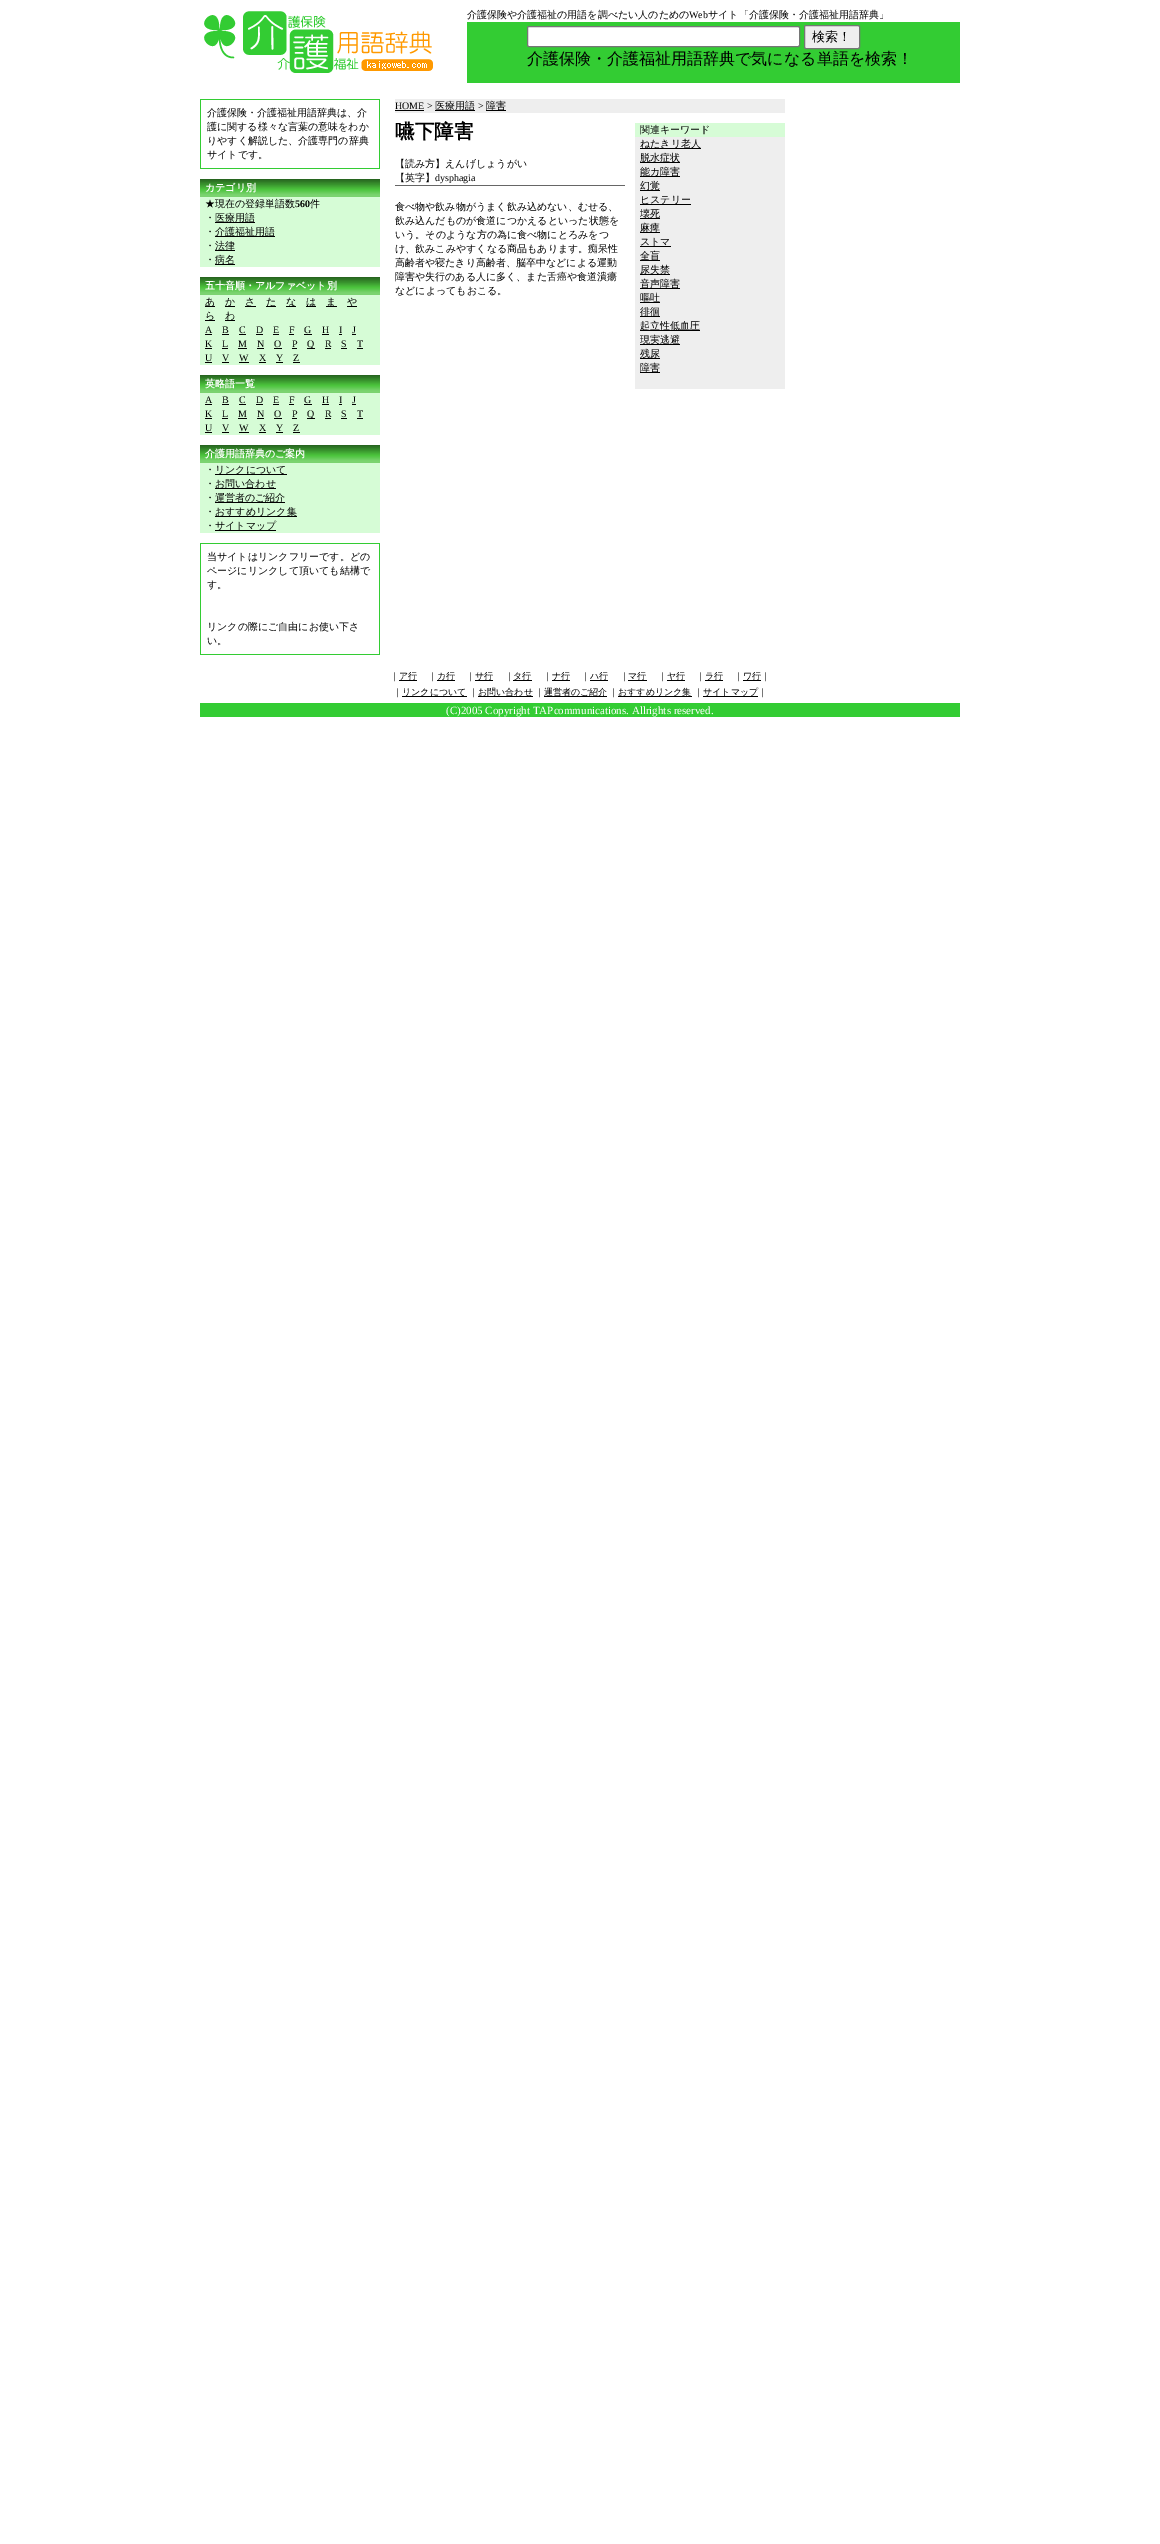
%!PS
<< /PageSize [1160 2544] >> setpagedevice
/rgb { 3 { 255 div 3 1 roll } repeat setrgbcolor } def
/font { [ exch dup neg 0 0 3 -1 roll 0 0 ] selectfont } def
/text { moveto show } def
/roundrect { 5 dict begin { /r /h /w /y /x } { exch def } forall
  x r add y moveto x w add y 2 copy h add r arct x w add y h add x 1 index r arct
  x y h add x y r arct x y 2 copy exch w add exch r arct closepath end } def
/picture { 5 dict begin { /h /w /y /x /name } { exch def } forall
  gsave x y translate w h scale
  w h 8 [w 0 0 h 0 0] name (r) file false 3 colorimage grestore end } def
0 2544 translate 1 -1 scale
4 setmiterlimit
255 255 255 rgb
0 0 1160 2544 rectfill
(img_01.rgb) 204 11 229 62 picture
51 204 51 rgb
467 22 493 61 rectfill
255 255 255 rgb
527.5 26.5 272 20 1.5 roundrect gsave fill grestore
118 118 118 rgb
stroke
239 239 239 rgb
804.5 25.5 55 23 1.5 roundrect gsave fill grestore
118 118 118 rgb
stroke
51 204 51 rgb
200 99 180 70 rectfill
255 255 255 rgb
201 100 178 68 rectfill
(img_02.rgb) 200 179 180 18 picture
214 252 214 rgb
200 197 180 70 rectfill
0 0 0 rgb
215 222 40 1 rectfill
215 236 60 1 rectfill
215 250 20 1 rectfill
215 264 20 1 rectfill
(img_02.rgb) 200 277 180 18 picture
214 252 214 rgb
200 295 180 70 rectfill
0 0 0 rgb
205 306 10 1 rectfill
225 306 10 1 rectfill
245 306 11 1 rectfill
266 306 10 1 rectfill
286 306 10 1 rectfill
306 306 10 1 rectfill
326 306 11 1 rectfill
347 306 10 1 rectfill
205 320 10 1 rectfill
225 320 10 1 rectfill
205 334 7 1 rectfill
222 334 7 1 rectfill
239 334 7 1 rectfill
256 334 7 1 rectfill
273 334 6 1 rectfill
289 334 5 1 rectfill
304 334 8 1 rectfill
322 334 7 1 rectfill
339 334 3 1 rectfill
352 334 4 1 rectfill
205 348 7 1 rectfill
222 348 6 1 rectfill
238 348 9 1 rectfill
257 348 7 1 rectfill
274 348 8 1 rectfill
292 348 5 1 rectfill
307 348 8 1 rectfill
325 348 6 1 rectfill
341 348 6 1 rectfill
357 348 6 1 rectfill
205 362 7 1 rectfill
222 362 7 1 rectfill
239 362 10 1 rectfill
259 362 7 1 rectfill
276 362 7 1 rectfill
293 362 7 1 rectfill
(img_02.rgb) 200 375 180 18 picture
214 252 214 rgb
200 393 180 42 rectfill
0 0 0 rgb
205 404 7 1 rectfill
222 404 7 1 rectfill
239 404 7 1 rectfill
256 404 7 1 rectfill
273 404 6 1 rectfill
289 404 5 1 rectfill
304 404 8 1 rectfill
322 404 7 1 rectfill
339 404 3 1 rectfill
352 404 4 1 rectfill
205 418 7 1 rectfill
222 418 6 1 rectfill
238 418 9 1 rectfill
257 418 7 1 rectfill
274 418 8 1 rectfill
292 418 5 1 rectfill
307 418 8 1 rectfill
325 418 6 1 rectfill
341 418 6 1 rectfill
357 418 6 1 rectfill
205 432 7 1 rectfill
222 432 7 1 rectfill
239 432 10 1 rectfill
259 432 7 1 rectfill
276 432 7 1 rectfill
293 432 7 1 rectfill
(img_02.rgb) 200 445 180 18 picture
214 252 214 rgb
200 463 180 70 rectfill
0 0 0 rgb
215 474 72 1 rectfill
215 488 61 1 rectfill
215 502 70 1 rectfill
215 516 82 1 rectfill
215 530 61 1 rectfill
51 204 51 rgb
200 543 180 112 rectfill
255 255 255 rgb
201 544 178 110 rectfill
238 238 238 rgb
395 99 390 14 rectfill
0 0 0 rgb
395 110 29 1 rectfill
435 110 40 1 rectfill
486 110 20 1 rectfill
102 102 102 rgb
395 185 230 1 rectfill
214 252 214 rgb
635 123 150 14 rectfill
238 238 238 rgb
635 137 150 252 rectfill
0 0 0 rgb
640 148 61 1 rectfill
640 162 40 1 rectfill
640 176 40 1 rectfill
640 190 20 1 rectfill
640 204 51 1 rectfill
640 218 20 1 rectfill
640 232 20 1 rectfill
640 246 31 1 rectfill
640 260 20 1 rectfill
640 274 30 1 rectfill
640 288 40 1 rectfill
640 302 20 1 rectfill
640 316 20 1 rectfill
640 330 60 1 rectfill
640 344 40 1 rectfill
640 358 20 1 rectfill
640 372 20 1 rectfill
399 680 18 1 rectfill
437 680 18 1 rectfill
475 680 18 1 rectfill
513 680 19 1 rectfill
552 680 18 1 rectfill
590 680 18 1 rectfill
628 680 19 1 rectfill
667 680 18 1 rectfill
705 680 18 1 rectfill
743 680 18 1 rectfill
402 696 65 1 rectfill
478 696 55 1 rectfill
544 696 63 1 rectfill
618 696 74 1 rectfill
703 696 55 1 rectfill
51 204 51 rgb
200 703 760 14 rectfill
/WenQuanYiZenHei-Medium 10 font
0 0 0 rgb
(介護保険や介護福祉の用語を調べたい人のための) 467 18 text
/LiberationSerif-Regular 10 font
(Web) 689 18 text
/WenQuanYiZenHei-Medium 10 font
(サイト「介護保険・介護福祉用語辞典」) 708 18 text
/WenQuanYiZenHei-Medium 13 font
(検索！) 812 41 text
/WenQuanYiZenHei-Medium 16 font
(介護保険・介護福祉用語辞典で気になる単語を検索！) 527 64 text
/WenQuanYiZenHei-Medium 10 font
(介護保険・介護福祉用語辞典は、介) 207 116 text
(護に関する様々な言葉の意味をわか) 207 130 text
(りやすく解説した、介護専門の辞典) 207 144 text
(サイトです。) 207 158 text
/WenQuanYiZenHei-Bold 10 font
255 255 255 rgb
(カテゴリ別) 205 191 text
/WenQuanYiZenHei-Medium 10 font
0 0 0 rgb
(★現在の登録単語数) 205 207 text
/LiberationSerif-Bold 10 font
(560) 295 207 text
/WenQuanYiZenHei-Medium 10 font
(件) 310 207 text
(・) 205 221 text
(医療用語) 215 221 text
(・) 205 235 text
(介護福祉用語) 215 235 text
(・) 205 249 text
(法律) 215 249 text
(・) 205 263 text
(病名) 215 263 text
/WenQuanYiZenHei-Bold 10 font
255 255 255 rgb
(五十音順・アルファベット別) 205 289 text
/WenQuanYiZenHei-Medium 10 font
0 0 0 rgb
(あ) 205 305 text
(か) 225 305 text
(さ) 245 305 text
(た) 266 305 text
(な) 286 305 text
(は) 306 305 text
(ま) 326 305 text
(や) 347 305 text
(ら) 205 319 text
(わ) 225 319 text
/LiberationSerif-Regular 10 font
(A) 205 333 text
(B) 222 333 text
(C) 239 333 text
(D) 256 333 text
(E) 273 333 text
(F) 289 333 text
(G) 304 333 text
(H) 322 333 text
(I) 339 333 text
(J) 352 333 text
(K) 205 347 text
(L) 222 347 text
(M) 238 347 text
(N) 257 347 text
(O) 274 347 text
(P) 292 347 text
(Q) 307 347 text
(R) 325 347 text
(S) 341 347 text
(T) 357 347 text
(U) 205 361 text
(V) 222 361 text
(W) 239 361 text
(X) 259 361 text
(Y) 276 361 text
(Z) 293 361 text
/WenQuanYiZenHei-Bold 10 font
255 255 255 rgb
(英略語一覧) 205 387 text
/LiberationSerif-Regular 10 font
0 0 0 rgb
(A) 205 403 text
(B) 222 403 text
(C) 239 403 text
(D) 256 403 text
(E) 273 403 text
(F) 289 403 text
(G) 304 403 text
(H) 322 403 text
(I) 339 403 text
(J) 352 403 text
(K) 205 417 text
(L) 222 417 text
(M) 238 417 text
(N) 257 417 text
(O) 274 417 text
(P) 292 417 text
(Q) 307 417 text
(R) 325 417 text
(S) 341 417 text
(T) 357 417 text
(U) 205 431 text
(V) 222 431 text
(W) 239 431 text
(X) 259 431 text
(Y) 276 431 text
(Z) 293 431 text
/WenQuanYiZenHei-Bold 10 font
255 255 255 rgb
(介護用語辞典のご案内) 205 457 text
/WenQuanYiZenHei-Medium 10 font
0 0 0 rgb
(・) 205 473 text
(リンクについて) 215 473 text
(・) 205 487 text
(お問い合わせ) 215 487 text
(・) 205 501 text
(運営者のご紹介) 215 501 text
(・) 205 515 text
(おすすめリンク集) 215 515 text
(・) 205 529 text
(サイトマップ) 215 529 text
(当サイトはリンクフリーです。どの) 207 560 text
(ページにリンクして頂いても結構で) 207 574 text
(す。) 207 588 text
(リンクの際にご自由にお使い下さ) 207 630 text
(い。) 207 644 text
/LiberationSerif-Regular 10 font
(HOME >) 395 109 text
/WenQuanYiZenHei-Medium 10 font
(医療用語) 435 109 text
/LiberationSerif-Regular 10 font
(>) 478 109 text
/WenQuanYiZenHei-Medium 10 font
(障害) 486 109 text
/WenQuanYiZenHei-Bold 19.5 font
(嚥下障害) 395 138 text
/WenQuanYiZenHei-Medium 10 font
(【読み方】えんげしょうがい) 395 167 text
(【英字】) 395 181 text
/LiberationSerif-Regular 10 font
(dysphagia) 435 181 text
/WenQuanYiZenHei-Medium 10 font
(食べ物や飲み物がうまく飲み込めない、むせる、) 395 210 text
(飲み込んだものが食道につかえるといった状態を) 395 224 text
(いう。そのような方の為に食べ物にとろみをつ) 395 238 text
(け、飲みこみやすくなる商品もあります。痴呆性) 395 252 text
(高齢者や寝たきり高齢者、脳卒中などによる運動) 395 266 text
(障害や失行のある人に多く、また舌癌や食道潰瘍) 395 280 text
(などによってもおこる。) 395 294 text
(関連キーワード) 640 133 text
(ねたきリ老人) 640 147 text
(脱水症状) 640 161 text
(能カ障害) 640 175 text
(幻覚) 640 189 text
(ヒステリー) 640 203 text
(壊死) 640 217 text
(麻痺) 640 231 text
(ストマ) 640 245 text
(全盲) 640 259 text
(尿失禁) 640 273 text
(音声障害) 640 287 text
(嘔吐) 640 301 text
(徘徊) 640 315 text
(起立性低血圧) 640 329 text
(現実逃避) 640 343 text
(残尿) 640 357 text
(障害) 640 371 text
/WenQuanYiZenHei-Medium 9 font
(｜) 390 679 text
(ア行) 399 679 text
(｜) 428 679 text
(カ行) 437 679 text
(｜) 466 679 text
(サ行) 475 679 text
(｜) 505 679 text
(タ行) 513 679 text
(｜) 543 679 text
(ナ行) 552 679 text
(｜) 581 679 text
(ハ行) 590 679 text
(｜) 620 679 text
(マ行) 628 679 text
(｜) 658 679 text
(ヤ行) 667 679 text
(｜) 696 679 text
(ラ行) 705 679 text
(｜) 734 679 text
(ワ行｜) 743 679 text
(｜) 393 695 text
(リンクについて) 402 695 text
(｜) 469 695 text
(お問い合わせ) 478 695 text
(｜) 535 695 text
(運営者のご紹介) 544 695 text
(｜) 609 695 text
(おすすめリンク集) 618 695 text
(｜) 694 695 text
(サイトマップ｜) 703 695 text
/LiberationSerif-Regular 11 font
255 255 255 rgb
(\(C\)2005 Copyright TAPcommunications. Allrights reserved.) 446 714 text
showpage
